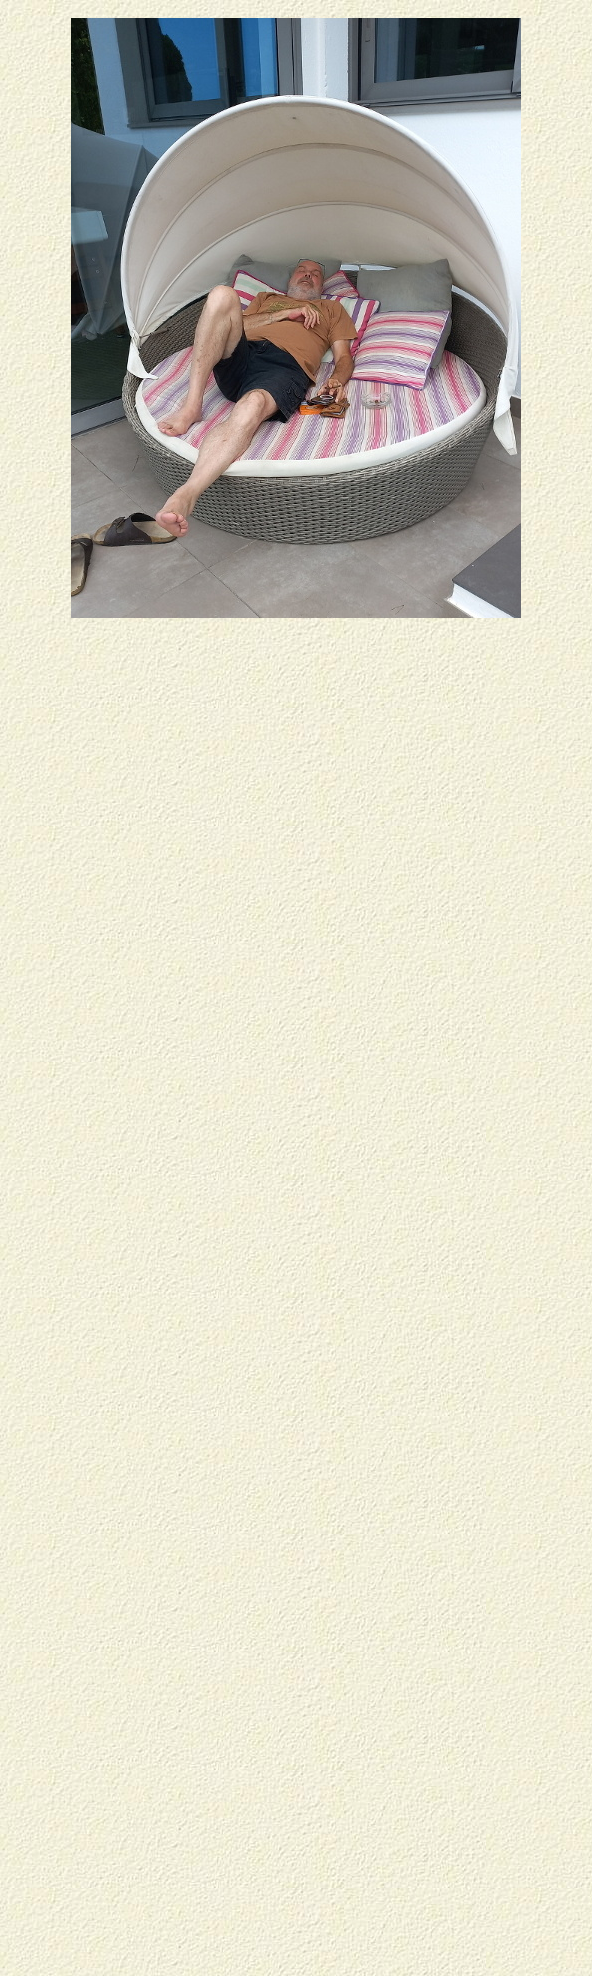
%!PS
<< /PageSize [592 1976] >> setpagedevice
/rgb { 3 { 255 div 3 1 roll } repeat setrgbcolor } def
/picture { 5 dict begin { /h /w /y /x /name } { exch def } forall
  gsave x y translate w h scale
  w h 8 [w 0 0 h 0 0] name (r) file false 3 colorimage grestore end } def
0 1976 translate 1 -1 scale
4 setmiterlimit
255 255 255 rgb
0 0 592 1976 rectfill
(img_01.rgb) 0 0 592 1976 picture
(img_02.rgb) 71 18 450 600 picture
showpage
